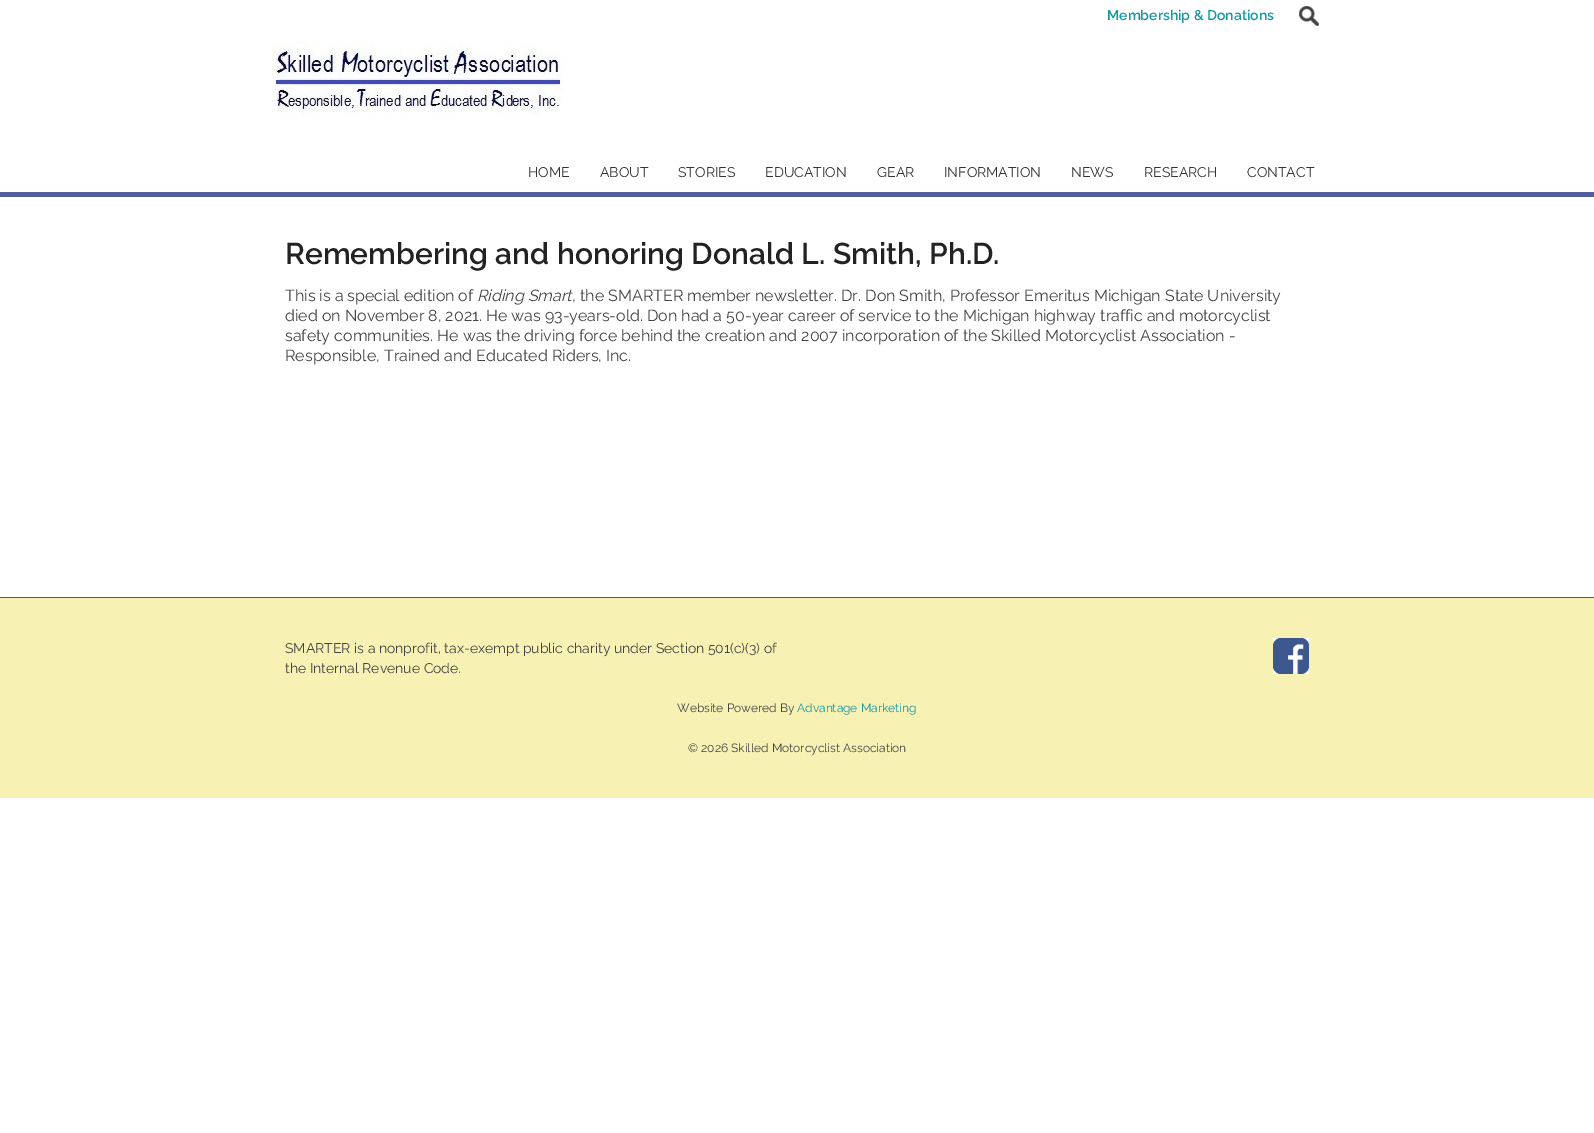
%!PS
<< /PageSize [1594 1133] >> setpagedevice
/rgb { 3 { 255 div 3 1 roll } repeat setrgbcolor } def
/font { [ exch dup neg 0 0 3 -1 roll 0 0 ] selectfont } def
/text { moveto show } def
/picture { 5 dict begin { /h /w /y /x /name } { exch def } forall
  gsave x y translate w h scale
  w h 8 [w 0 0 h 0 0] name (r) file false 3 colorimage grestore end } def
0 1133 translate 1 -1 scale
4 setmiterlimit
255 255 255 rgb
0 0 1594 1133 rectfill
80 94 158 rgb
0 192 1594 5 rectfill
(img_01.rgb) 1299 6 20 20 picture
(img_02.rgb) 272 41 291 76 picture
247 241 180 rgb
0 598 1594 200 rectfill
89 89 89 rgb
0 597 1594 1 rectfill
(img_03.rgb) 1273 638 36 36 picture
/Raleway-SemiBold 14 font
23 152 165 rgb
(Membership & Donations) 1107 20 text
/Raleway-Regular 14 font
51 51 51 rgb
(HOME) 528 177 text
(ABOUT) 600 177 text
(STORIES) 678 177 text
(EDUCATION) 765 177 text
(GEAR) 877 177 text
(INFORMATION) 944 177 text
(NEWS) 1071 177 text
(RESEARCH) 1144 177 text
(CONTACT) 1247 177 text
/Raleway-SemiBold 30 font
34 34 34 rgb
(Remembering and honoring Donald L. Smith, Ph.D.) 285 264 text
/Raleway-Regular 16 font
68 68 68 rgb
(This is a special edition of) 285 301 text
/Raleway-Italic 16 font
(Riding Smart,) 477 301 text
/Raleway-Regular 16 font
(the SMARTER member newsletter. Dr. Don Smith, Professor Emeritus Michigan State University) 580 301 text
(died on November 8, 2021. He was 93-years-old. Don had a 50-year career of service to the Michigan highway traffic and motorcyclist) 285 321 text
(safety communities. He was the driving force behind the creation and 2007 incorporation of the Skilled Motorcyclist Association -) 285 341 text
(Responsible, Trained and Educated Riders, Inc.) 285 361 text
/Raleway-Regular 14 font
(SMARTER is a nonprofit, tax-exempt public charity under Section 501\(c\)\(3\) of) 285 653 text
(the Internal Revenue Code.) 285 673 text
/Raleway-Regular 12 font
(Website Powered By) 677 712 text
23 152 165 rgb
(Advantage Marketing) 797 712 text
68 68 68 rgb
(© 2026 Skilled Motorcyclist Association) 688 752 text
showpage
